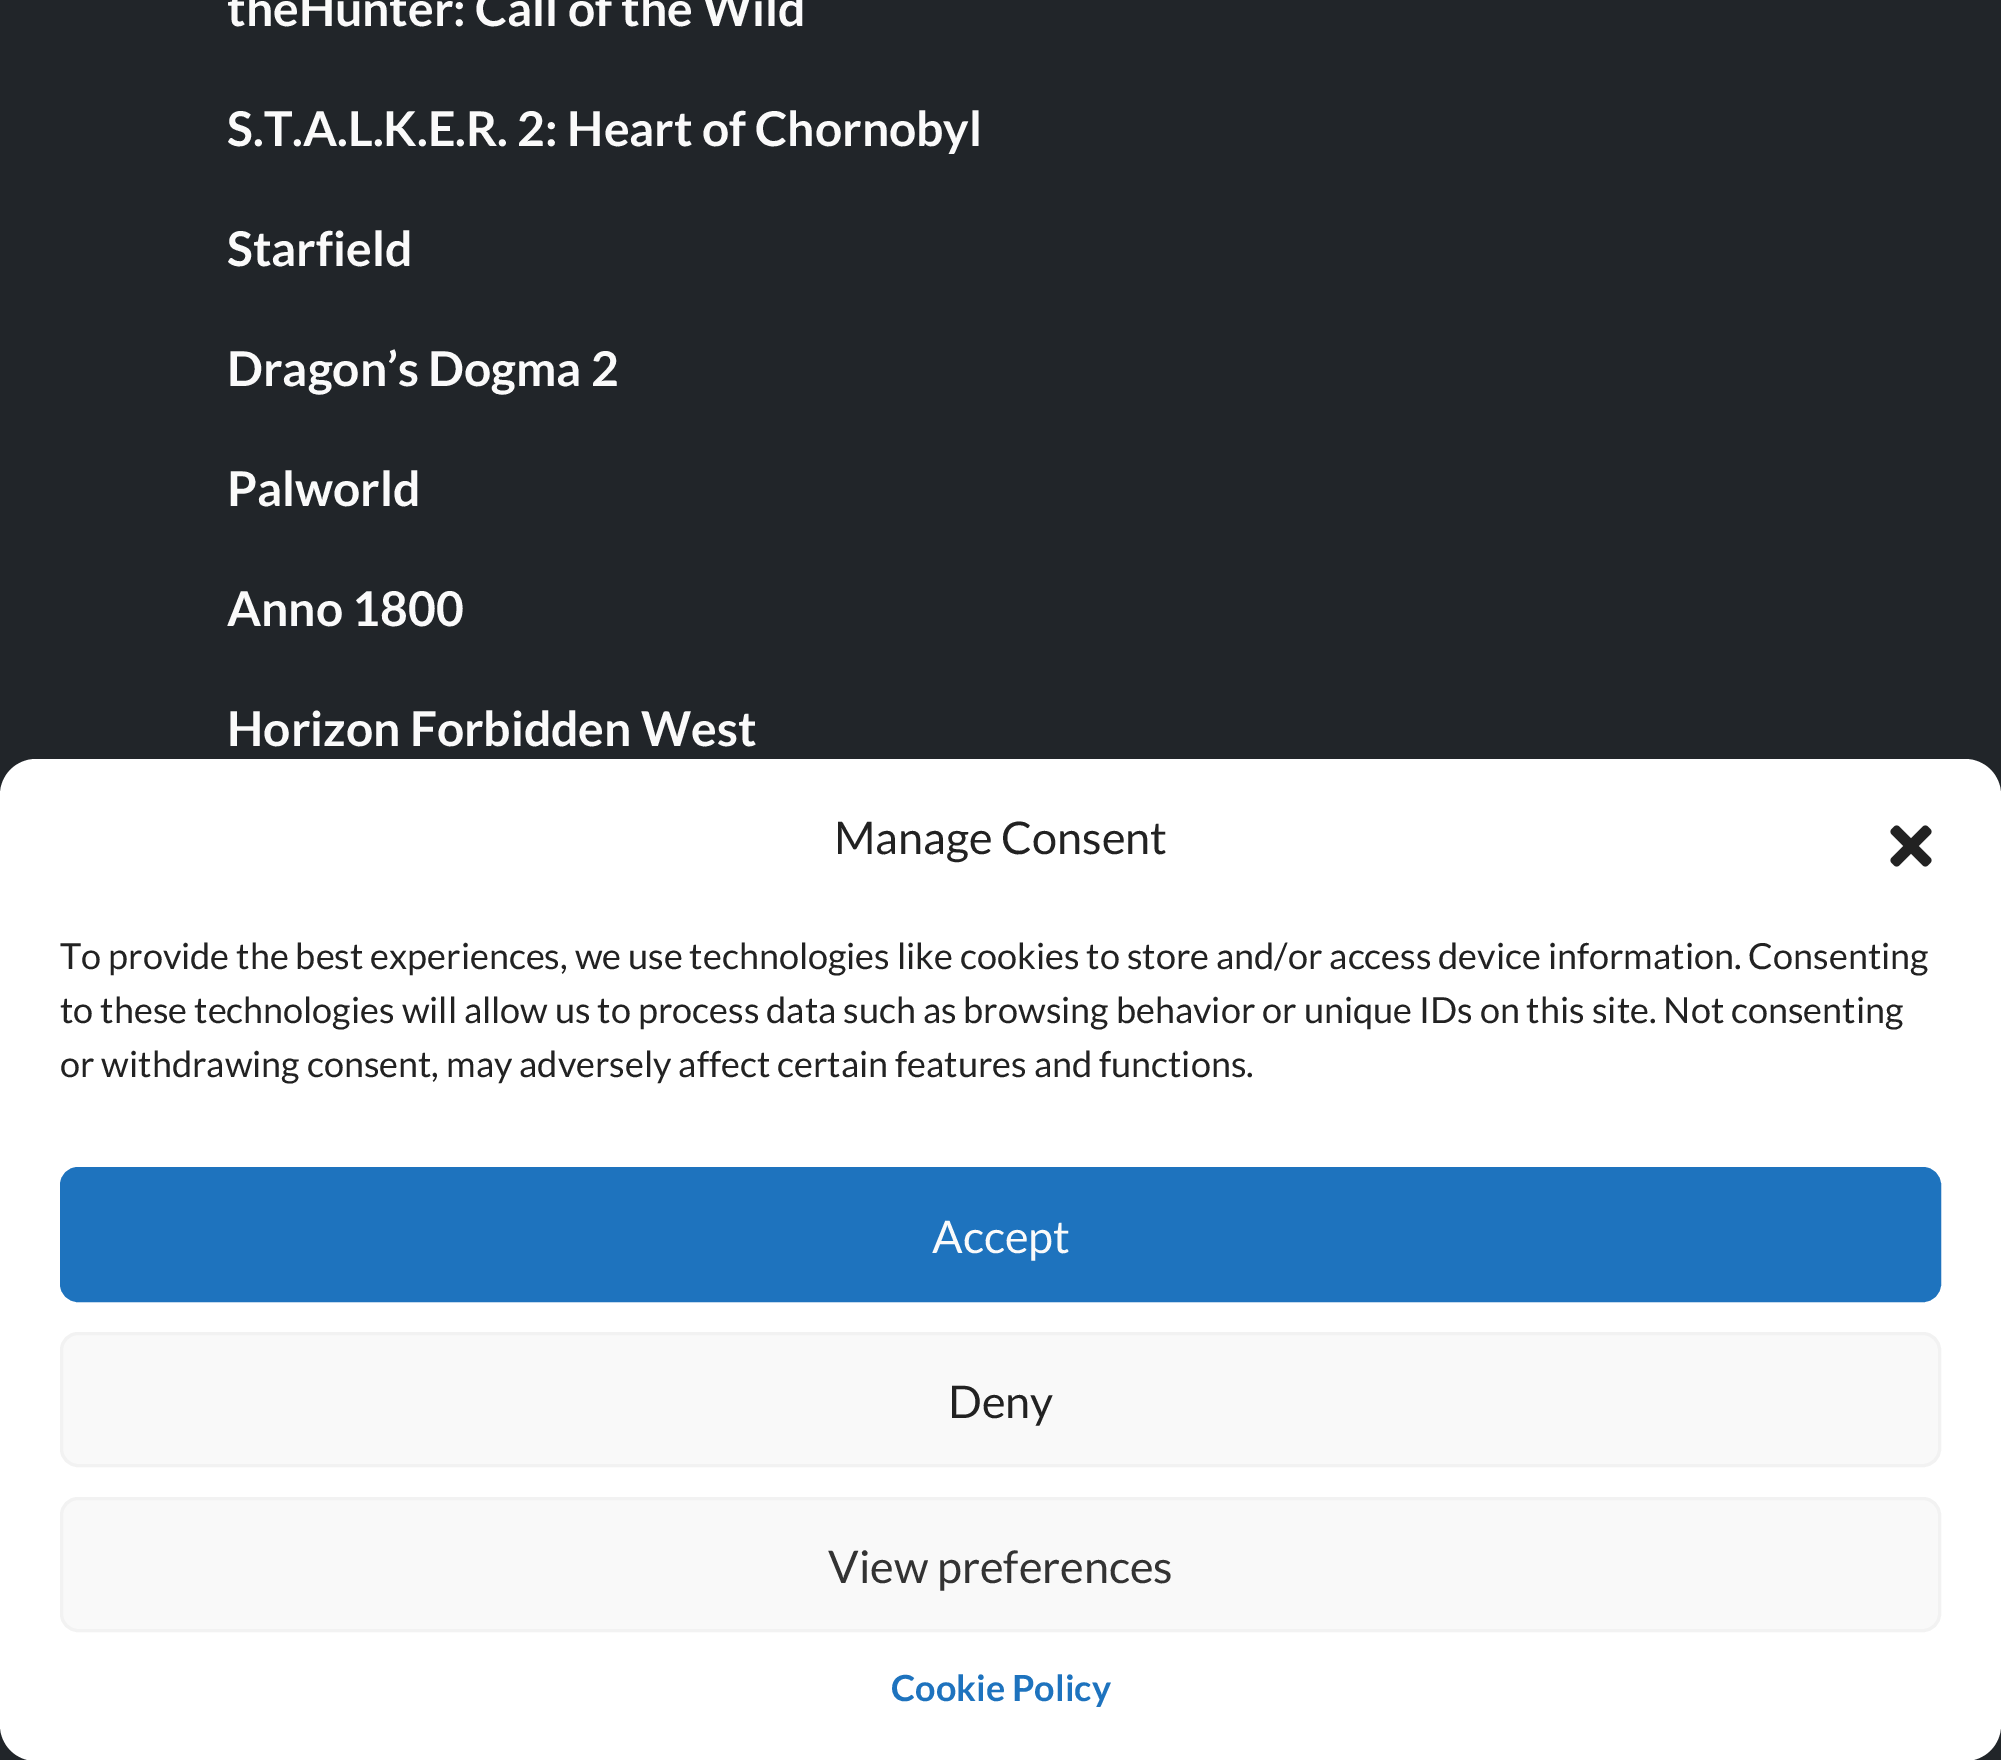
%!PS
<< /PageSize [2001 1760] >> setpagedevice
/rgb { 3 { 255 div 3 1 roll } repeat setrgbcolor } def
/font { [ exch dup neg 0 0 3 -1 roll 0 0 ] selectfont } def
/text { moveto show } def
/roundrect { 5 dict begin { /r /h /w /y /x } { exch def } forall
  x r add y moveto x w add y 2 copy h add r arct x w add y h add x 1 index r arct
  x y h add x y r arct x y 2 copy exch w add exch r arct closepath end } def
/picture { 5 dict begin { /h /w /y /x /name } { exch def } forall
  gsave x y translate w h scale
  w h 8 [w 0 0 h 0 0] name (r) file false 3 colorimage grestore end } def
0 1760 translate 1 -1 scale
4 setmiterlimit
33 37 41 rgb
0 0 2001 1760 rectfill
255 255 255 rgb
0 759 2001 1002 36 roundrect fill
(img_01.rgb) 1890 825 42 42 picture
30 115 190 rgb
61.5 1168.5 1878 132 16.5 roundrect gsave fill grestore
3 setlinewidth
stroke
249 249 249 rgb
61.5 1333.5 1878 132 16.5 roundrect gsave fill grestore
242 242 242 rgb
stroke
249 249 249 rgb
61.5 1498.5 1878 132 16.5 roundrect gsave fill grestore
242 242 242 rgb
stroke
/Lato-Bold 48 font
250 250 250 rgb
(theHunter: Call of the Wild) 227 26 text
(S.T.A.L.K.E.R. 2: Heart of Chornobyl) 227 146 text
(Starfield) 227 266 text
(Dragon’s Dogma 2) 227 386 text
(Palworld) 227 506 text
(Anno 1800) 227 626 text
(Horizon Forbidden West) 227 746 text
/Lato-Regular 45 font
34 34 34 rgb
(Manage Consent) 834 854 text
/Lato-Regular 36 font
(To provide the best experiences, we use technologies like cookies to store and/or access device information. Consenting) 60 969 text
(to these technologies will allow us to process data such as browsing behavior or unique IDs on this site. Not consenting) 60 1023 text
(or withdrawing consent, may adversely affect certain features and functions.) 60 1077 text
/Lato-Regular 45 font
250 250 250 rgb
(Accept) 932 1253 text
34 34 34 rgb
(Deny) 948 1418 text
51 51 51 rgb
(View preferences) 828 1583 text
/Lato-Bold 36 font
30 115 190 rgb
(Cookie Policy) 891 1701 text
showpage
